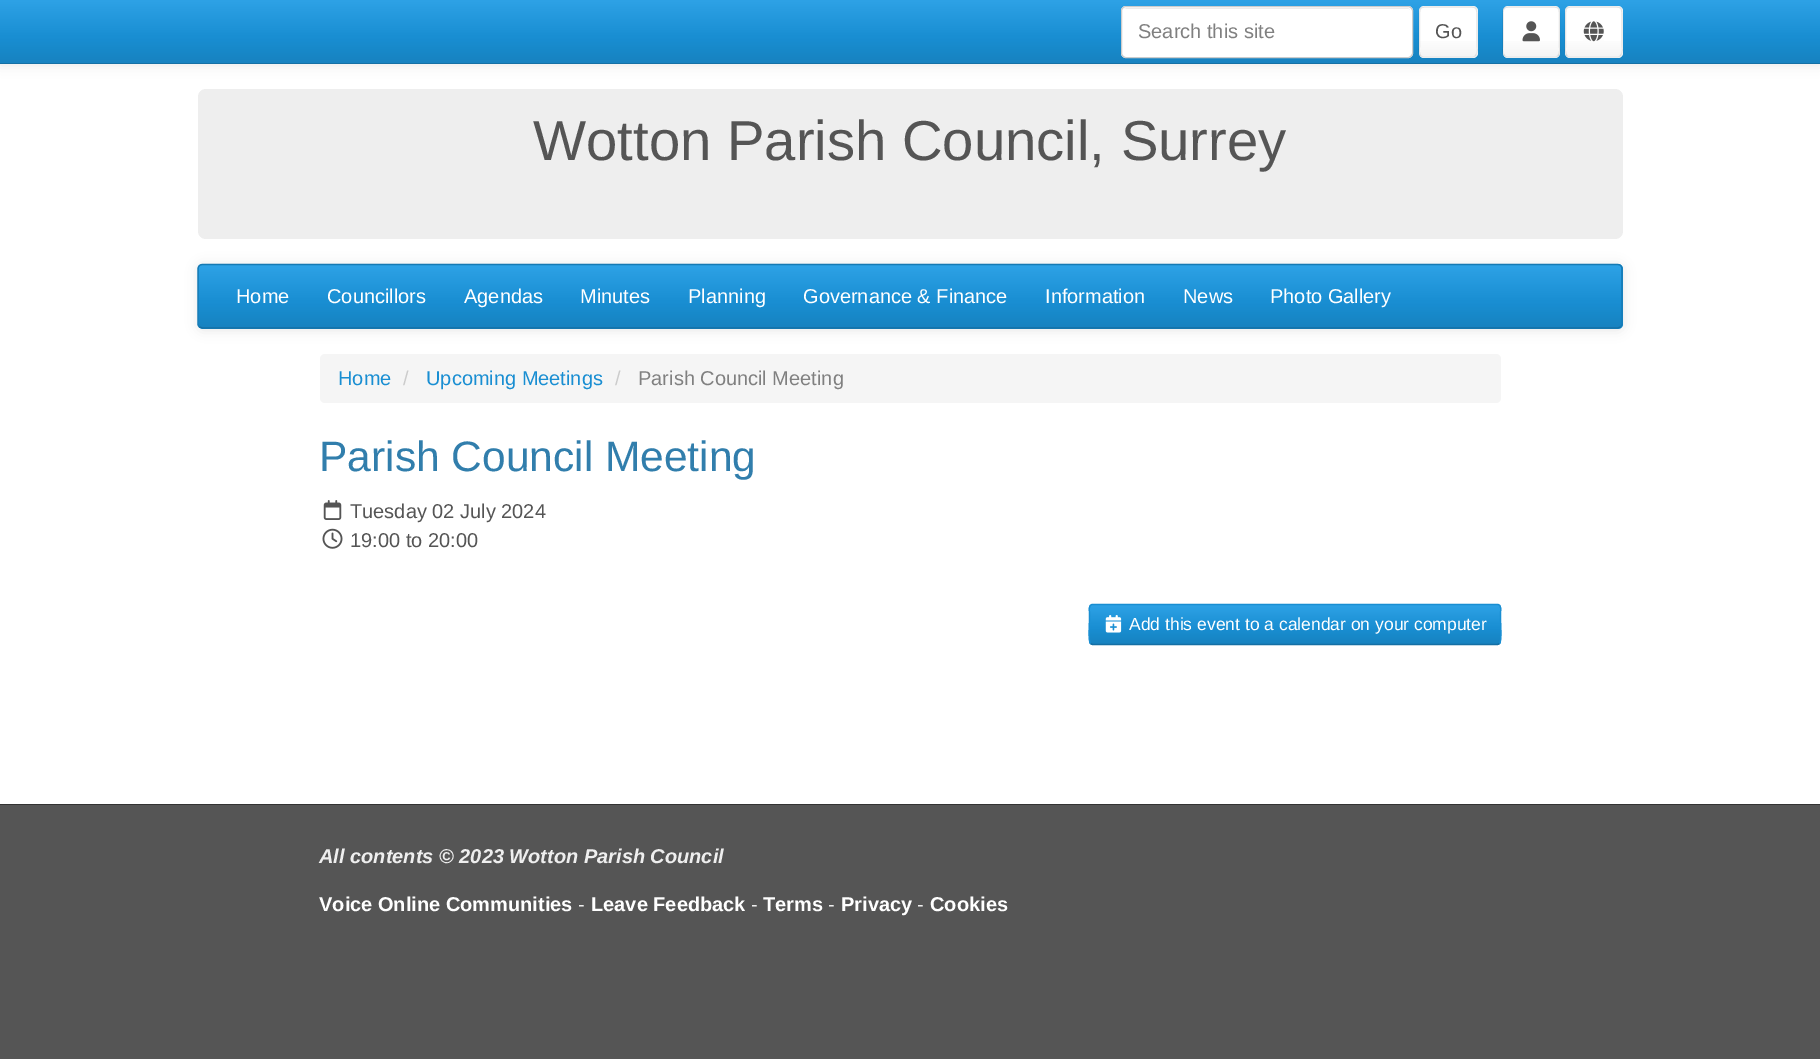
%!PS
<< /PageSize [1820 1059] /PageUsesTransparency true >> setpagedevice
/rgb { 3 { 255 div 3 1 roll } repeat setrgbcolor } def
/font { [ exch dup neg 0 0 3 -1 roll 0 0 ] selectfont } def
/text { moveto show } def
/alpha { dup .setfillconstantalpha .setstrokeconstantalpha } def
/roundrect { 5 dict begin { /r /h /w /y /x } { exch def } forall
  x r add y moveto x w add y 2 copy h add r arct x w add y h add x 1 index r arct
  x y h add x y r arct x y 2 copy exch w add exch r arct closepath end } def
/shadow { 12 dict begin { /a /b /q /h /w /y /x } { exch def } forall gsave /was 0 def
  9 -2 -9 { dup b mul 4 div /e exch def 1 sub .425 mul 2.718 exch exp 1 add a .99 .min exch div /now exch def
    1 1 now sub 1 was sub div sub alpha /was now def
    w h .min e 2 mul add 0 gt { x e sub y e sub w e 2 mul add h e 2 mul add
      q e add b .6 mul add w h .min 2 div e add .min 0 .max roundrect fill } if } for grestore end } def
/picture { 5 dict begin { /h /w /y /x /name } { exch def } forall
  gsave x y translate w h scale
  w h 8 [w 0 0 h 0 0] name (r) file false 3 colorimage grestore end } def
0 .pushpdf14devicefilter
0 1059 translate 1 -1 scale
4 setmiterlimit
255 255 255 rgb
0 0 1820 1059 rectfill
0 0 0 rgb
0 1 1820 64 0 6 0.1 shadow
gsave 0 0 moveto 1820 0 rlineto 0 63 rlineto -1820 0 rlineto closepath clip newpath
<< /ShadingType 2 /ColorSpace /DeviceRGB /Coords [910 0 910 63] /Extend [true true] /Function << /FunctionType 3 /Domain [0 1] /Functions [<< /FunctionType 2 /Domain [0 1] /C0 [0.18 0.635 0.902] /C1 [0.098 0.557 0.824] /N 1 >> << /FunctionType 2 /Domain [0 1] /C0 [0.098 0.557 0.824] /C1 [0.09 0.51 0.753] /N 1 >>] /Bounds [0.6] /Encode [0 1 0 1] >> >> shfill grestore
20 111 164 rgb
0 63 1820 1 rectfill
255 255 255 rgb
1121 6 292 52 5 roundrect fill
236 236 236 rgb
1126 9 moveto 283 0 rlineto 1 1 rlineto 0 -1 -2 -2 -3 -2 rcurveto -280 0 rlineto -1 0 -2 1 -3 1 rcurveto closepath fill
204 204 204 rgb
1121.5 6.5 291 51 4.5 roundrect stroke
255 255 255 rgb
1419 6 59 52 5 roundrect fill
gsave 1420 41 moveto 56 0 rlineto 0 15 rlineto -56 0 rlineto closepath clip newpath
<< /ShadingType 2 /ColorSpace /DeviceRGB /Coords [1448 7.5 1448 56] /Extend [true true] /Function << /FunctionType 3 /Domain [0 1] /Functions [<< /FunctionType 2 /Domain [0 1] /C0 [1 1 1] /C1 [1 1 1] /N 1 >> << /FunctionType 2 /Domain [0 1] /C0 [1 1 1] /C1 [0.961 0.961 0.961] /N 1 >>] /Bounds [0.6] /Encode [0 1 0 1] >> >> shfill grestore
230 230 230 rgb
1.2 setlinewidth
1475.5 55.5 moveto -0.5 1 -2 1.5 -3 1.5 rcurveto -48.5 0 rlineto -1.5 0 -2.5 -0.5 -3.5 -1.5 rcurveto stroke
0.1 alpha
0 0 0 rgb
1420.5 55.5 moveto -2 -2.5 -1 -7.5 -1 -10 rcurveto 0 -27.5 rlineto 0 -12 0 -11 12.5 -11 rcurveto 32.5 0 rlineto 12.5 0 12.5 -1 12.5 11 rcurveto 0 27.5 rlineto 0 2.5 1 7.5 -1.5 10 rcurveto stroke
1 alpha
255 255 255 rgb
1503 6 57 52 5 roundrect fill
gsave 1504 41 moveto 55 0 rlineto 0 15 rlineto -55 0 rlineto closepath clip newpath
<< /ShadingType 2 /ColorSpace /DeviceRGB /Coords [1531 7.5 1531 56] /Extend [true true] /Function << /FunctionType 3 /Domain [0 1] /Functions [<< /FunctionType 2 /Domain [0 1] /C0 [1 1 1] /C1 [1 1 1] /N 1 >> << /FunctionType 2 /Domain [0 1] /C0 [1 1 1] /C1 [0.961 0.961 0.961] /N 1 >>] /Bounds [0.6] /Encode [0 1 0 1] >> >> shfill grestore
230 230 230 rgb
1558 55.5 moveto -0.5 1 -2 1.5 -3 1.5 rcurveto -47.5 0 rlineto -1 0 -2.5 -0.5 -3 -1.5 rcurveto stroke
0.1 alpha
0 0 0 rgb
1504.5 55.5 moveto -2.5 -2.5 -1.5 -7.5 -1.5 -10 rcurveto 0 -27.5 rlineto 0 -12 0 -11 12.5 -11 rcurveto 31.5 0 rlineto 12.5 0 12.5 -1 12.5 11 rcurveto 0 27.5 rlineto 0 2.5 1 7.5 -1.5 10 rcurveto stroke
1 alpha
(img_01.rgb) 1522 21 18 21 picture
255 255 255 rgb
1565 6 58 52 5 roundrect fill
gsave 1566 41 moveto 55 0 rlineto 0 15 rlineto -55 0 rlineto closepath clip newpath
<< /ShadingType 2 /ColorSpace /DeviceRGB /Coords [1594 7.5 1594 56] /Extend [true true] /Function << /FunctionType 3 /Domain [0 1] /Functions [<< /FunctionType 2 /Domain [0 1] /C0 [1 1 1] /C1 [1 1 1] /N 1 >> << /FunctionType 2 /Domain [0 1] /C0 [1 1 1] /C1 [0.961 0.961 0.961] /N 1 >>] /Bounds [0.6] /Encode [0 1 0 1] >> >> shfill grestore
230 230 230 rgb
1620.5 55.5 moveto -0.5 1 -2 1.5 -3 1.5 rcurveto -47.5 0 rlineto -1 0 -2.5 -0.5 -3 -1.5 rcurveto stroke
0.1 alpha
0 0 0 rgb
1567 55.5 moveto -2.5 -2.5 -1.5 -7.5 -1.5 -10 rcurveto 0 -27.5 rlineto 0 -12 0 -11 12.5 -11 rcurveto 31.5 0 rlineto 12.5 0 12.5 -1 12.5 11 rcurveto 0 27.5 rlineto 0 2.5 1 7.5 -1.5 10 rcurveto stroke
1 alpha
(img_02.rgb) 1583 21 21 21 picture
238 238 238 rgb
198 89 1425 150 8 roundrect fill
0 0 0 rgb
198 265 1425 65 5 6 0.1 shadow
25 142 210 rgb
198 264 1425 65 5 roundrect fill
gsave 199 265 moveto 1422 0 rlineto 0 63 rlineto -1422 0 rlineto closepath clip newpath
<< /ShadingType 2 /ColorSpace /DeviceRGB /Coords [910 265 910 328] /Extend [true true] /Function << /FunctionType 3 /Domain [0 1] /Functions [<< /FunctionType 2 /Domain [0 1] /C0 [0.18 0.635 0.902] /C1 [0.098 0.557 0.824] /N 1 >> << /FunctionType 2 /Domain [0 1] /C0 [0.098 0.557 0.824] /C1 [0.09 0.51 0.753] /N 1 >>] /Bounds [0.6] /Encode [0 1 0 1] >> >> shfill grestore
20 111 164 rgb
1620.5 327 moveto -3 1 rlineto -1415 0 rlineto -3 -1 rlineto stroke
21 122 180 rgb
199.5 327 moveto -1 -1 -1.5 -2 -1.5 -3 rcurveto 0 -55 rlineto 0 -1.5 0.5 -2.5 1.5 -3.5 rcurveto 0.5 -0.5 2 -1 3 -1 rcurveto 1415 0 rlineto 1 0 2.5 0.5 3 1 rcurveto 1 1 1.5 2 1.5 3.5 rcurveto 0 55 rlineto 0 1 -0.5 2 -1.5 3 rcurveto stroke
245 245 245 rgb
320 354 1181 49 5 roundrect fill
(img_03.rgb) 323 500 19 20 picture
(img_04.rgb) 322 528 21 21 picture
25 142 210 rgb
1089 604 412 41 4 roundrect fill
gsave
1089 604 412 41 4 roundrect clip newpath
gsave 1090 605 moveto 410 0 rlineto 0 39 rlineto -410 0 rlineto closepath clip newpath
<< /ShadingType 2 /ColorSpace /DeviceRGB /Coords [1295 605 1295 644] /Extend [true true] /Function << /FunctionType 3 /Domain [0 1] /Functions [<< /FunctionType 2 /Domain [0 1] /C0 [0.18 0.635 0.902] /C1 [0.098 0.557 0.824] /N 1 >> << /FunctionType 2 /Domain [0 1] /C0 [0.098 0.557 0.824] /C1 [0.09 0.51 0.753] /N 1 >>] /Bounds [0.6] /Encode [0 1 0 1] >> >> shfill grestore
grestore
20 111 164 rgb
1499.5 643.5 moveto -2 1 rlineto -405 0 rlineto -2 -1 rlineto stroke
25 142 210 rgb
1090.5 643.5 moveto -2.5 -2 -1 -21 -1 -24.5 rcurveto 0 -6 rlineto 0 -2 -1.5 -8.5 3 -8.5 rcurveto 405 0 rlineto 4.5 0 3 6.5 3 8.5 rcurveto 0 6 rlineto 0 3.5 1.5 22.5 -1 24.5 rcurveto stroke
(img_05.rgb) 1105 615 17 18 picture
85 85 85 rgb
-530 804 moveto 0 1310 rlineto 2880 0 rlineto 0 -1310 rlineto -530 0 rlineto 0 250 rlineto -1820 0 rlineto 0 -250 rlineto closepath fill
0 805 1820 249 rectfill
51 51 51 rgb
0 804 1820 1 rectfill
/LiberationSans-Regular 20 font
128 128 128 rgb
(Search this site) 1138 38 text
85 85 85 rgb
(Go) 1435 38 text
/LiberationSans-Regular 56.25 font
(Wotton Parish Council, Surrey) 533 160 text
/LiberationSans-Regular 20 font
255 255 255 rgb
(Home) 236 303 text
(Councillors) 327 303 text
(Agendas) 464 303 text
(Minutes) 580 303 text
(Planning) 688 303 text
(Governance & Finance) 803 303 text
(Information) 1045 303 text
(News) 1183 303 text
(Photo Gallery) 1270 303 text
25 142 210 rgb
(Home) 338 385 text
204 204 204 rgb
(/) 403 385 text
25 142 210 rgb
(Upcoming Meetings) 426 385 text
204 204 204 rgb
(/) 615 385 text
128 128 128 rgb
(Parish Council Meeting) 638 385 text
/LiberationSans-Regular 42.5 font
49 126 172 rgb
(Parish Council Meeting) 319 471 text
/LiberationSans-Regular 20 font
85 85 85 rgb
(Tuesday 02 July 2024) 350 518 text
(19:00 to 20:00) 350 547 text
/LiberationSans-Regular 17.5 font
255 255 255 rgb
(Add this event to a calendar on your computer) 1129 630 text
/LiberationSans-BoldItalic 20 font
238 238 238 rgb
(All contents © 2023 Wotton Parish Council) 319 863 text
/LiberationSans-Bold 20 font
255 255 255 rgb
(Voice Online Communities) 319 911 text
/LiberationSans-Regular 20 font
238 238 238 rgb
(-) 578 911 text
/LiberationSans-Bold 20 font
255 255 255 rgb
(Leave Feedback) 591 911 text
/LiberationSans-Regular 20 font
238 238 238 rgb
(-) 751 911 text
/LiberationSans-Bold 20 font
255 255 255 rgb
(Terms) 763 911 text
/LiberationSans-Regular 20 font
238 238 238 rgb
(-) 828 911 text
/LiberationSans-Bold 20 font
255 255 255 rgb
(Privacy) 841 911 text
/LiberationSans-Regular 20 font
238 238 238 rgb
(-) 917 911 text
/LiberationSans-Bold 20 font
255 255 255 rgb
(Cookies) 930 911 text
.poppdf14devicefilter showpage
